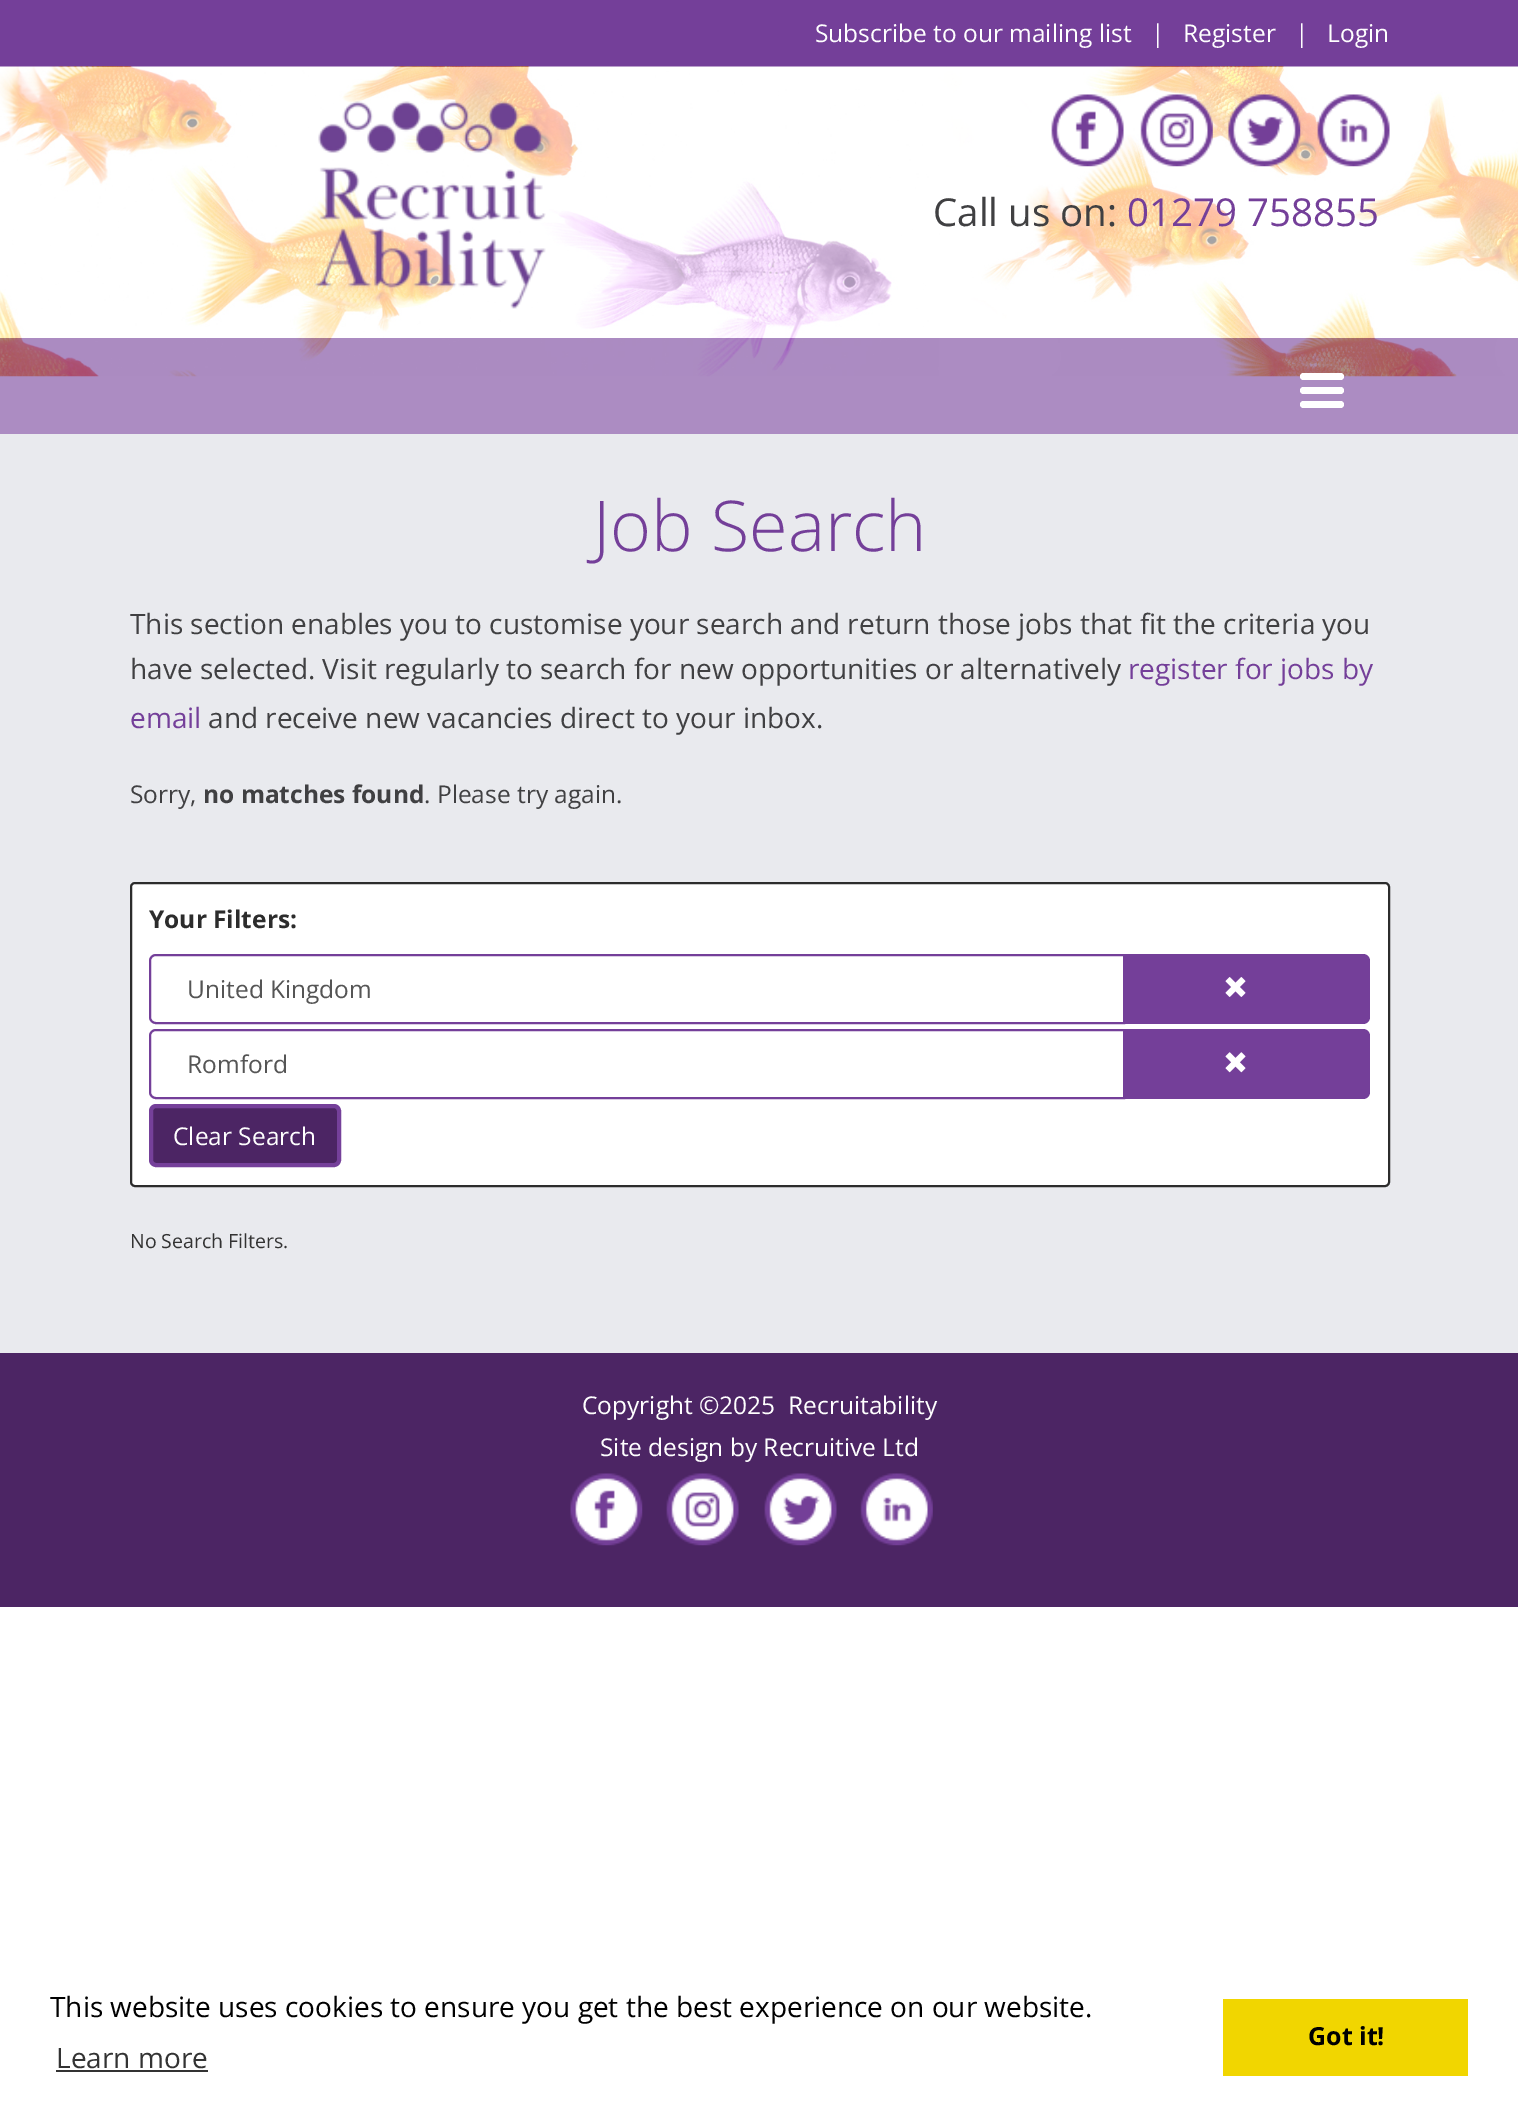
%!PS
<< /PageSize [1518 2115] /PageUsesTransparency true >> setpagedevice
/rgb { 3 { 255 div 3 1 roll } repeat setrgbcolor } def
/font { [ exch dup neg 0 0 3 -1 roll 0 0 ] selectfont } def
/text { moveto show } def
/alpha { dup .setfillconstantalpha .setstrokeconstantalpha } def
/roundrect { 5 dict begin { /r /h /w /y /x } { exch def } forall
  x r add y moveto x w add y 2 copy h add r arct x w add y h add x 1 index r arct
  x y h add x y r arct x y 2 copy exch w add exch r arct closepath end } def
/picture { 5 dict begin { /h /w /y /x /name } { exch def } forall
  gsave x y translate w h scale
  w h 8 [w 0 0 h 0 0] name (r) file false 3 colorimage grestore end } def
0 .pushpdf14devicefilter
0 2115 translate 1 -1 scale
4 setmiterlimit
255 255 255 rgb
0 0 1518 2115 rectfill
116 63 153 rgb
0 0 1518 67 rectfill
(img_01.rgb) 0 66 1518 311 picture
0.6 alpha
255 255 255 rgb
0 67 1518 271 rectfill
1 alpha
(img_02.rgb) 314 101 232 208 picture
(img_03.rgb) 1051 94 73 73 picture
(img_04.rgb) 1140 94 73 73 picture
(img_05.rgb) 1228 94 73 73 picture
(img_06.rgb) 1317 94 73 73 picture
0.6 alpha
116 63 153 rgb
0 338 1518 96 rectfill
1 alpha
255 255 255 rgb
1300 373 44 7 3.5 roundrect fill
1300 387 44 7 3.5 roundrect fill
1300 401 44 7 3.5 roundrect fill
233 234 238 rgb
0 434 1518 919 rectfill
255 255 255 rgb
131 883 1258 303 4 roundrect gsave fill grestore
44 44 44 rgb
2 setlinewidth
stroke
116 63 153 rgb
156 955 moveto 968 0 rlineto 0 68 rlineto -968 0 rlineto -3.5 0 -6 -2.5 -6 -6 rcurveto 0 -56 rlineto 0 -3.5 2.5 -6 6 -6 rcurveto closepath stroke
1125 954 moveto 238 0 rlineto 4 0 7 3 7 7 rcurveto 0 56 rlineto 0 4 -3 7 -7 7 rcurveto -238 0 rlineto closepath fill
(img_07.rgb) 1225 977 21 20 picture
156 1030 moveto 968 0 rlineto 0 68 rlineto -968 0 rlineto -3.5 0 -6 -2.5 -6 -6 rcurveto 0 -56 rlineto 0 -3.5 2.5 -6 6 -6 rcurveto closepath stroke
1125 1029 moveto 238 0 rlineto 4 0 7 3 7 7 rcurveto 0 56 rlineto 0 4 -3 7 -7 7 rcurveto -238 0 rlineto closepath fill
(img_08.rgb) 1225 1052 21 21 picture
76 37 100 rgb
151 1106 188 59 5 roundrect gsave fill grestore
117 64 154 rgb
4 setlinewidth
stroke
76 37 100 rgb
0 1353 1518 254 rectfill
(img_09.rgb) 570 1473 73 73 picture
(img_10.rgb) 666 1473 73 73 picture
(img_11.rgb) 764 1473 73 73 picture
(img_12.rgb) 860 1473 73 73 picture
51 51 51 rgb
56 2070 152 2 rectfill
241 214 0 rgb
1223 1999 245 77 rectfill
/OpenSans-Regular 24.5 font
255 255 255 rgb
(Subscribe to our mailing list) 815 42 text
(|) 1151 42 text
(Register) 1183 42 text
(|) 1295 42 text
(Login) 1327 42 text
/OpenSans-Regular 38.5 font
64 64 66 rgb
(Call us on:) 933 226 text
116 63 153 rgb
(01279 758855) 1127 226 text
/OpenSans-Light 70 font
(Job Search) 593 551 text
/OpenSans-Regular 28 font
64 64 66 rgb
(This section enables you to customise your search and return those jobs that fit the criteria you) 130 634 text
(have selected. Visit regularly to search for new opportunities or alternatively) 130 679 text
116 63 153 rgb
(register for jobs by) 1128 679 text
(email) 130 728 text
64 64 66 rgb
(and receive new vacancies direct to your inbox.) 208 728 text
/OpenSans-Regular 24.5 font
(Sorry,) 130 803 text
/OpenSans-Bold 24.5 font
(no matches found) 203 803 text
/OpenSans-Regular 24.5 font
(. Please try again.) 424 803 text
/OpenSans-Bold 24.5 font
44 44 44 rgb
(Your Filters:) 149 928 text
/OpenSans-Regular 24.5 font
85 85 85 rgb
(United Kingdom) 187 998 text
(Romford) 187 1073 text
255 255 255 rgb
(Clear Search) 173 1145 text
/OpenSans-Regular 19.5 font
51 51 51 rgb
(No Search Filters.) 130 1248 text
/OpenSans-Regular 24.5 font
255 255 255 rgb
(Copyright ©2025  Recruitability) 582 1414 text
(Site design by Recruitive Ltd) 600 1456 text
/OpenSans-Regular 28 font
0 0 0 rgb
(This website uses cookies to ensure you get the best experience on our website.) 50 2017 text
51 51 51 rgb
(Learn more) 56 2068 text
/OpenSans-Bold 25 font
0 0 0 rgb
(Got it!) 1308 2045 text
.poppdf14devicefilter showpage
